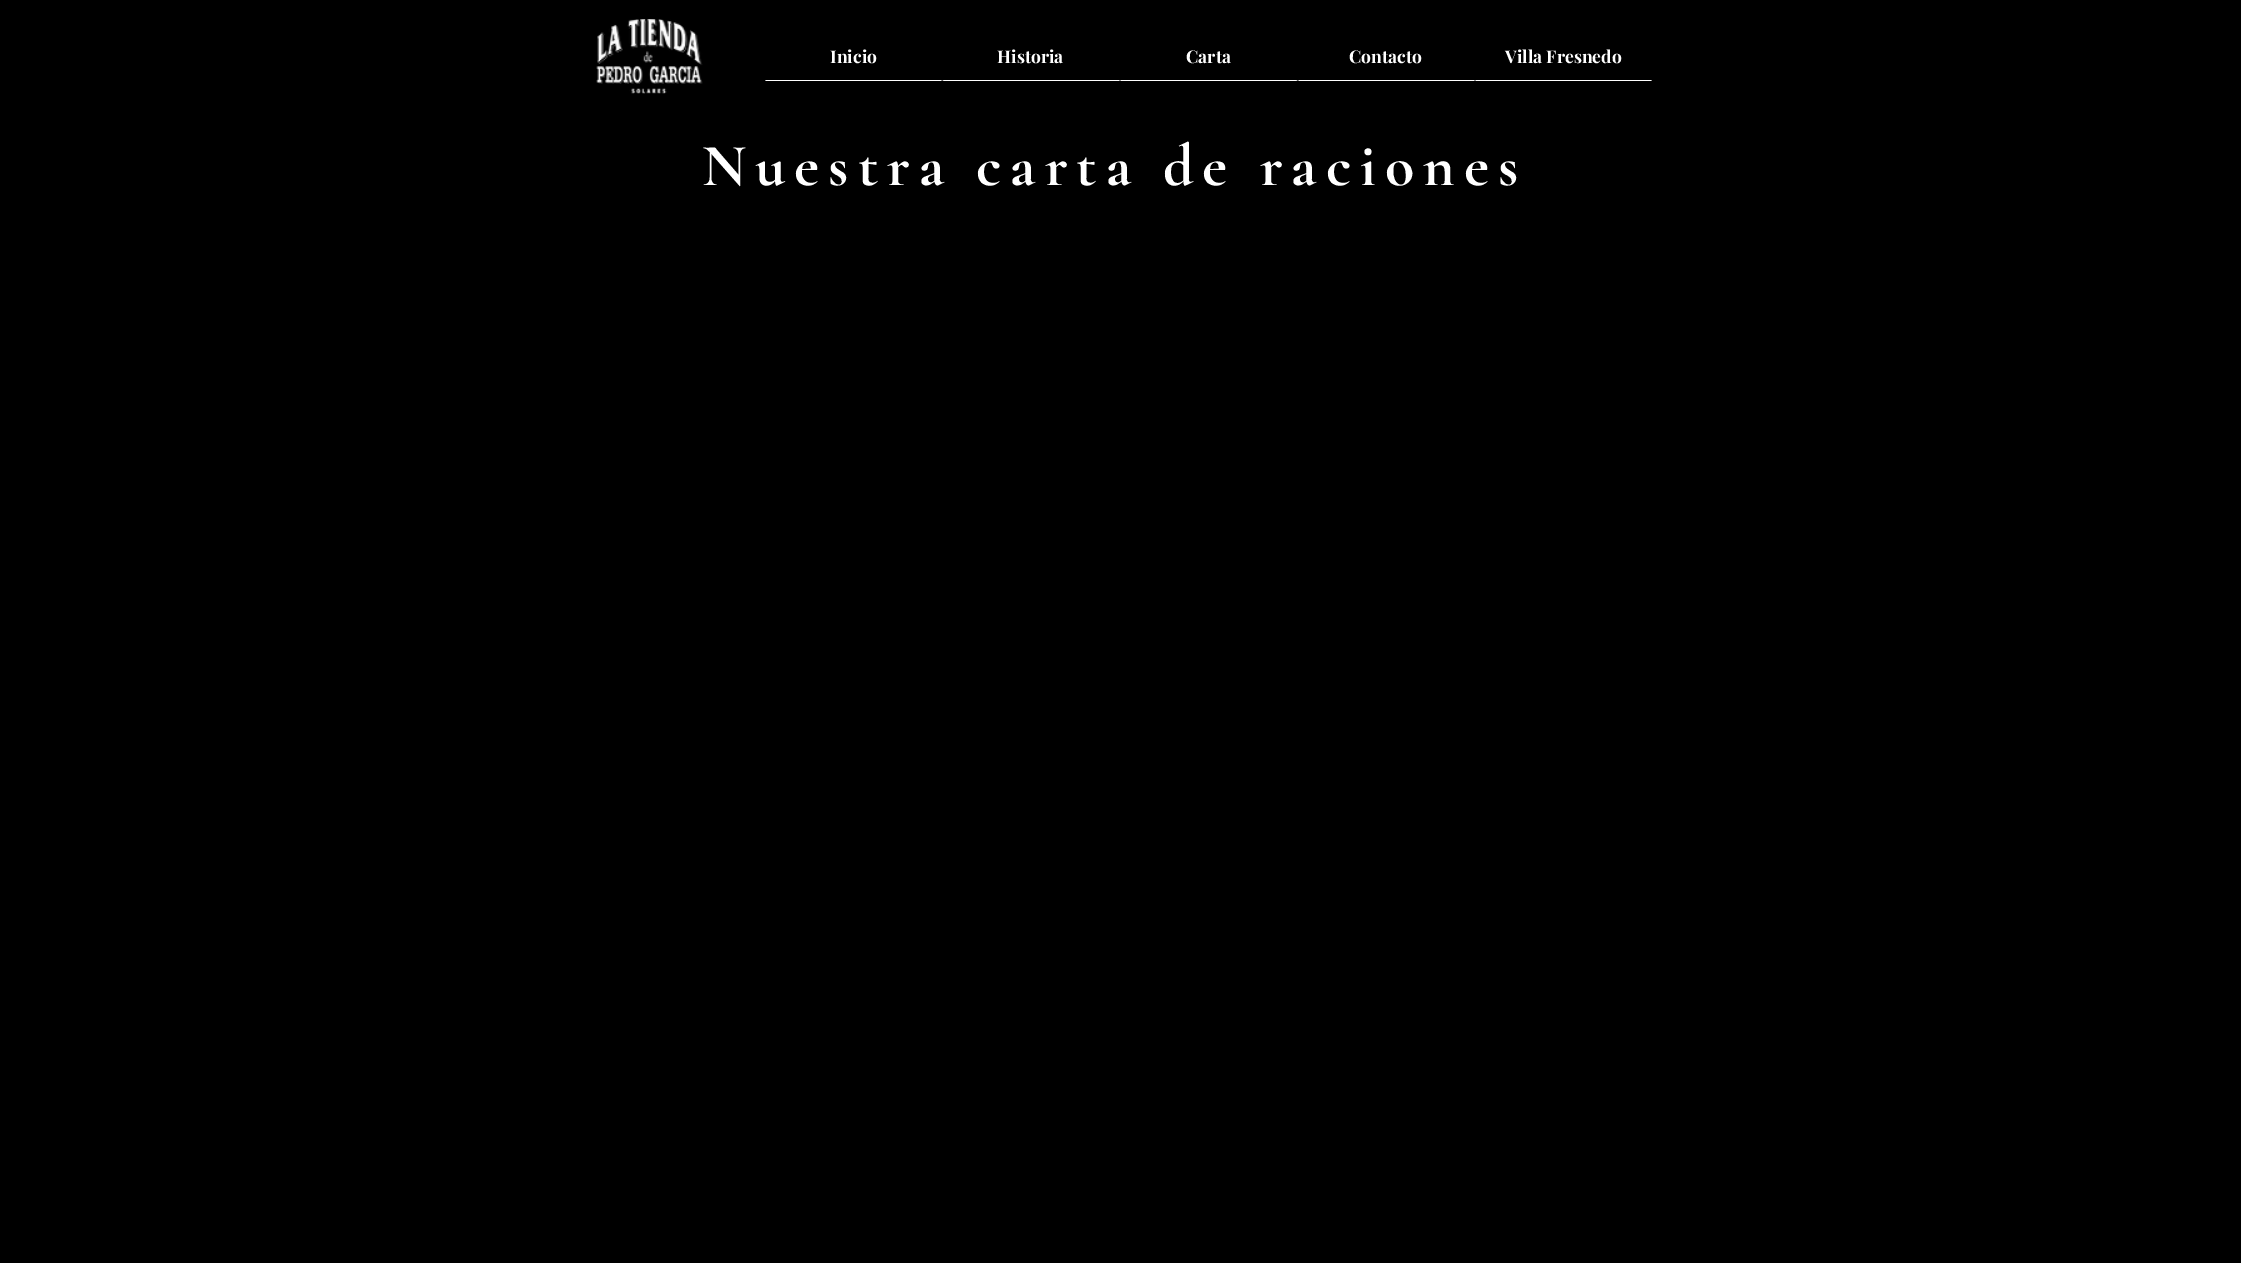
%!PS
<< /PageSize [2241 1263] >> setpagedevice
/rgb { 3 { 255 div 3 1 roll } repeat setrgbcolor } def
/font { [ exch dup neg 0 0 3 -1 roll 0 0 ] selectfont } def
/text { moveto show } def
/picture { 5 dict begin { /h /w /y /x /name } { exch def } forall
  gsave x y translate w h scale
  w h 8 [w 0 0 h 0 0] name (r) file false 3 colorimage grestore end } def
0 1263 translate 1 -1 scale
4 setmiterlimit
0 0 0 rgb
0 0 2241 1263 rectfill
(img_01.rgb) 596 19 107 75 picture
255 255 255 rgb
942 81 moveto -177 0 rlineto 1 -1 rlineto 175 0 rlineto closepath fill
1120 81 moveto -178 0 rlineto 2 -1 rlineto 175 0 rlineto closepath fill
1475 81 moveto -177 0 rlineto 1 -1 rlineto 175 0 rlineto closepath fill
1652 81 moveto -177 0 rlineto 1 -1 rlineto 175 0 rlineto closepath fill
1298 81 moveto -178 0 rlineto 1 -1 rlineto 175 0 rlineto closepath fill
/PlayfairDisplay-Bold 17.5 font
(Inicio) 830 63 text
(Historia) 997 63 text
(Contacto) 1349 63 text
(Villa Fresnedo) 1505 63 text
(Carta) 1186 63 text
/CormorantGaramond-Bold 60 font
702 185 moveto 9 0 (Nuestra carta de raciones) ashow
showpage
